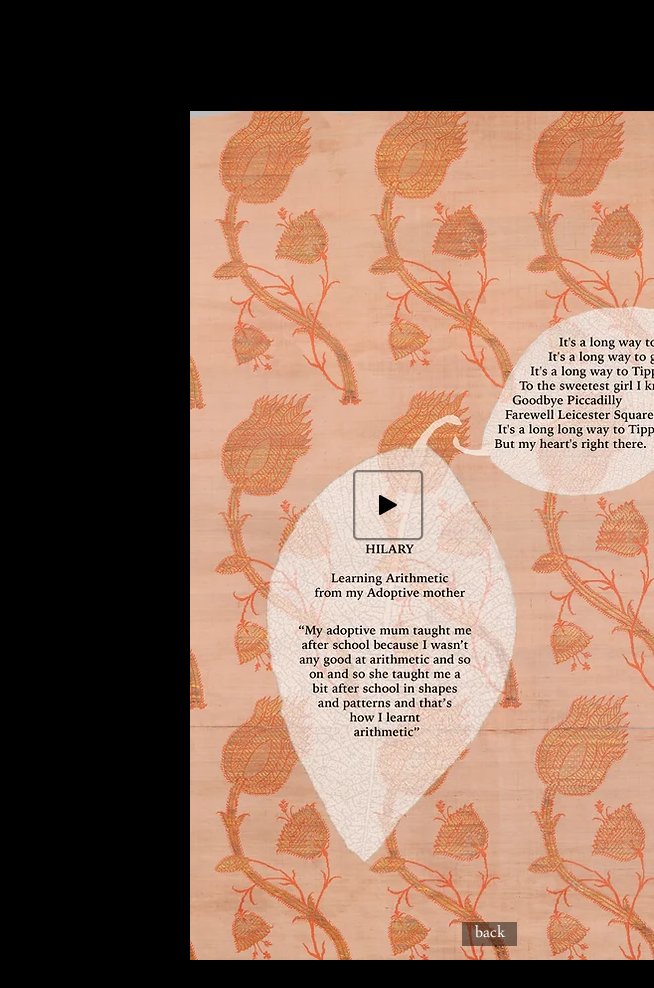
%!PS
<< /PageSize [654 988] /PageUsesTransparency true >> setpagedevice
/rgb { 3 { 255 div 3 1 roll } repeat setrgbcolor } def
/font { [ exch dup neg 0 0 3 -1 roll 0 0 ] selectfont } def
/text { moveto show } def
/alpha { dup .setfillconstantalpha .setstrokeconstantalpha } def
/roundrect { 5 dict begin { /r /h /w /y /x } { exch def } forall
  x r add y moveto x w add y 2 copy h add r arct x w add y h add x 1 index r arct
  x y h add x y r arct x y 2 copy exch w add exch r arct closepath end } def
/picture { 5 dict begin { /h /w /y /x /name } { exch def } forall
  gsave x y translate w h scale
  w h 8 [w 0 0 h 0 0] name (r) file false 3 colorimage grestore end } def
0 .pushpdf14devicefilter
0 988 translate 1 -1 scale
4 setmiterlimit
0 0 0 rgb
0 0 654 988 rectfill
(img_01.rgb) 190 111 464 849 picture
0.44 alpha
2 setlinewidth
354 471 68 68 4 roundrect stroke
1 alpha
(img_02.rgb) 379 495 18 20 picture
0.45 alpha
462 922 55 24 rectfill
/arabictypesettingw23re-Regular 23 font
1 alpha
255 255 255 rgb
(back) 475 937 text
.poppdf14devicefilter showpage
